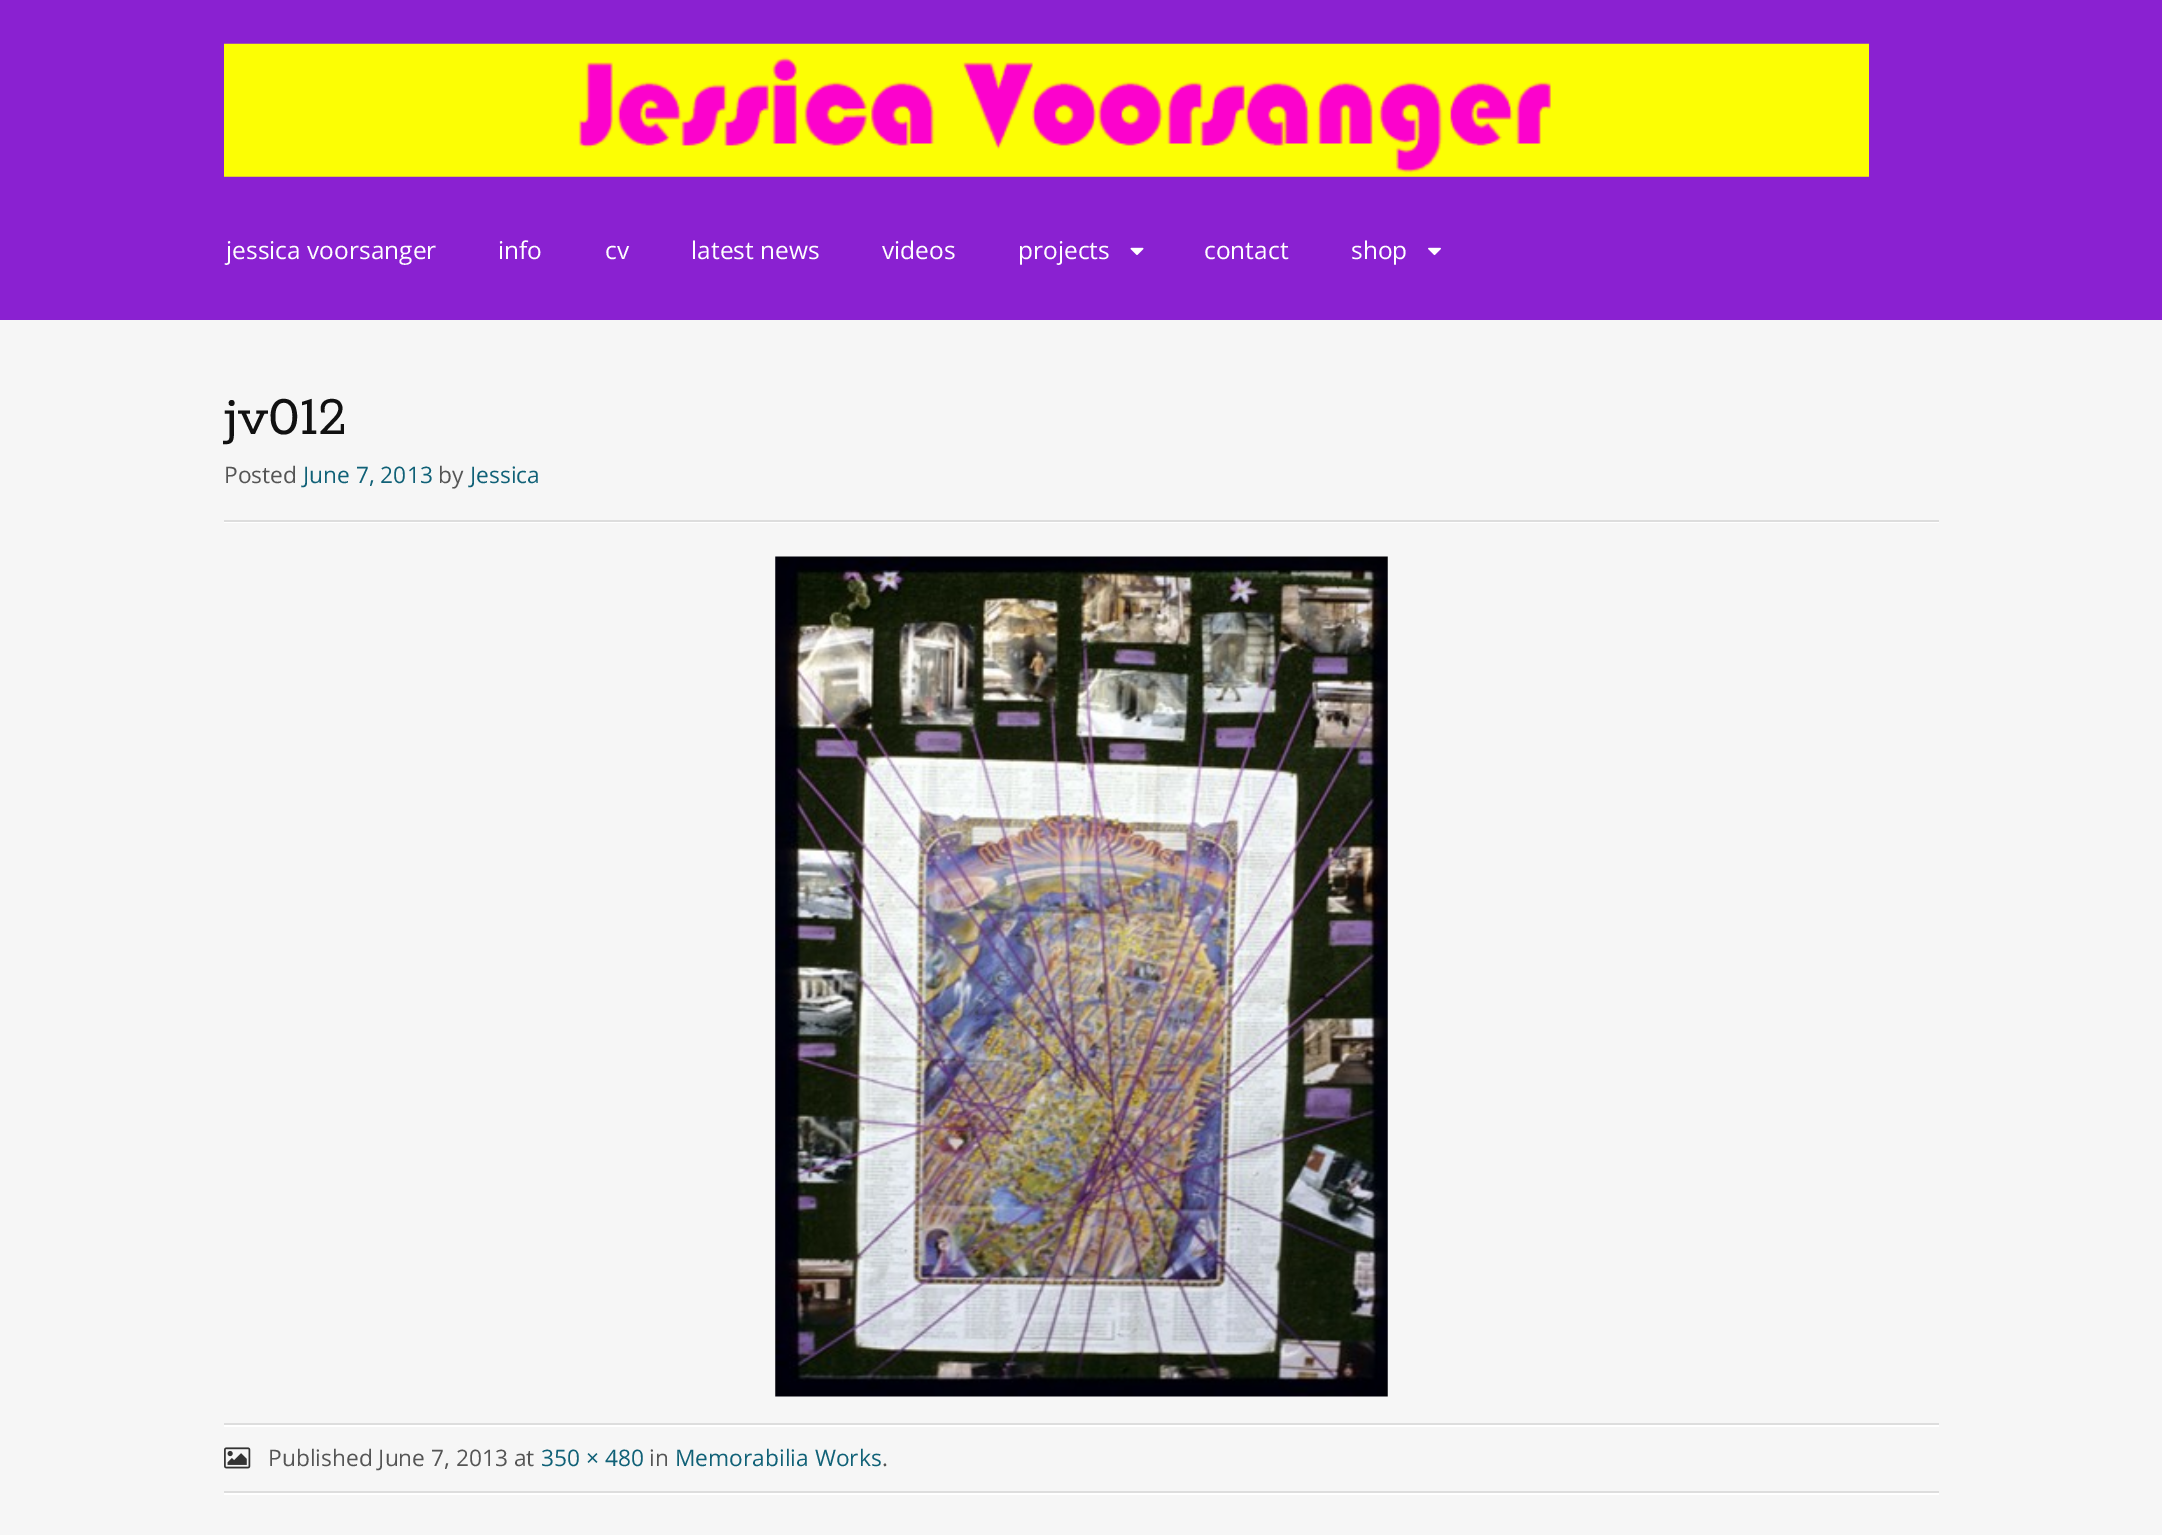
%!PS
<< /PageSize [2162 1535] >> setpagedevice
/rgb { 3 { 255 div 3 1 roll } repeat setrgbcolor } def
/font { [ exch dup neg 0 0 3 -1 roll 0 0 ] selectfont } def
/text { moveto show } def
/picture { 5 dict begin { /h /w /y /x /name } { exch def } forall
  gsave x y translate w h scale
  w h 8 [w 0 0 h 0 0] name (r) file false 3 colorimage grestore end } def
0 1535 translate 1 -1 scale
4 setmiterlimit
246 246 246 rgb
0 0 2162 1535 rectfill
138 33 209 rgb
0 0 2162 320 rectfill
(img_01.rgb) 224 43 1645 134 picture
(img_02.rgb) 1130 247 14 8 picture
(img_03.rgb) 1428 247 13 9 picture
255 255 255 rgb
224 522 1715 1 rectfill
221 221 221 rgb
224 520 1715 2 rectfill
(img_04.rgb) 775 556 613 841 picture
255 255 255 rgb
224 1425 1715 2 rectfill
221 221 221 rgb
224 1423 1715 2 rectfill
(img_05.rgb) 224 1447 27 22 picture
255 255 255 rgb
224 1493 1715 2 rectfill
221 221 221 rgb
224 1491 1715 2 rectfill
/OpenSans-Regular 24.5 font
255 255 255 rgb
(jessica voorsanger) 226 259 text
(info) 498 259 text
(cv) 605 259 text
(latest news) 691 259 text
(videos) 882 259 text
(projects) 1018 259 text
(contact) 1204 259 text
(shop) 1351 259 text
/Rokkitt-Regular 59.5 font
17 17 17 rgb
(jv012) 224 434 text
/OpenSans-Regular 22.75 font
85 85 85 rgb
(Posted) 224 483 text
16 97 119 rgb
(June 7, 2013) 303 483 text
85 85 85 rgb
(by) 438 483 text
16 97 119 rgb
(Jessica) 470 483 text
85 85 85 rgb
(Published June 7, 2013 at) 268 1466 text
16 97 119 rgb
(350 × 480) 541 1466 text
85 85 85 rgb
(in) 649 1466 text
16 97 119 rgb
(Memorabilia Works) 675 1466 text
85 85 85 rgb
(.) 882 1466 text
showpage
